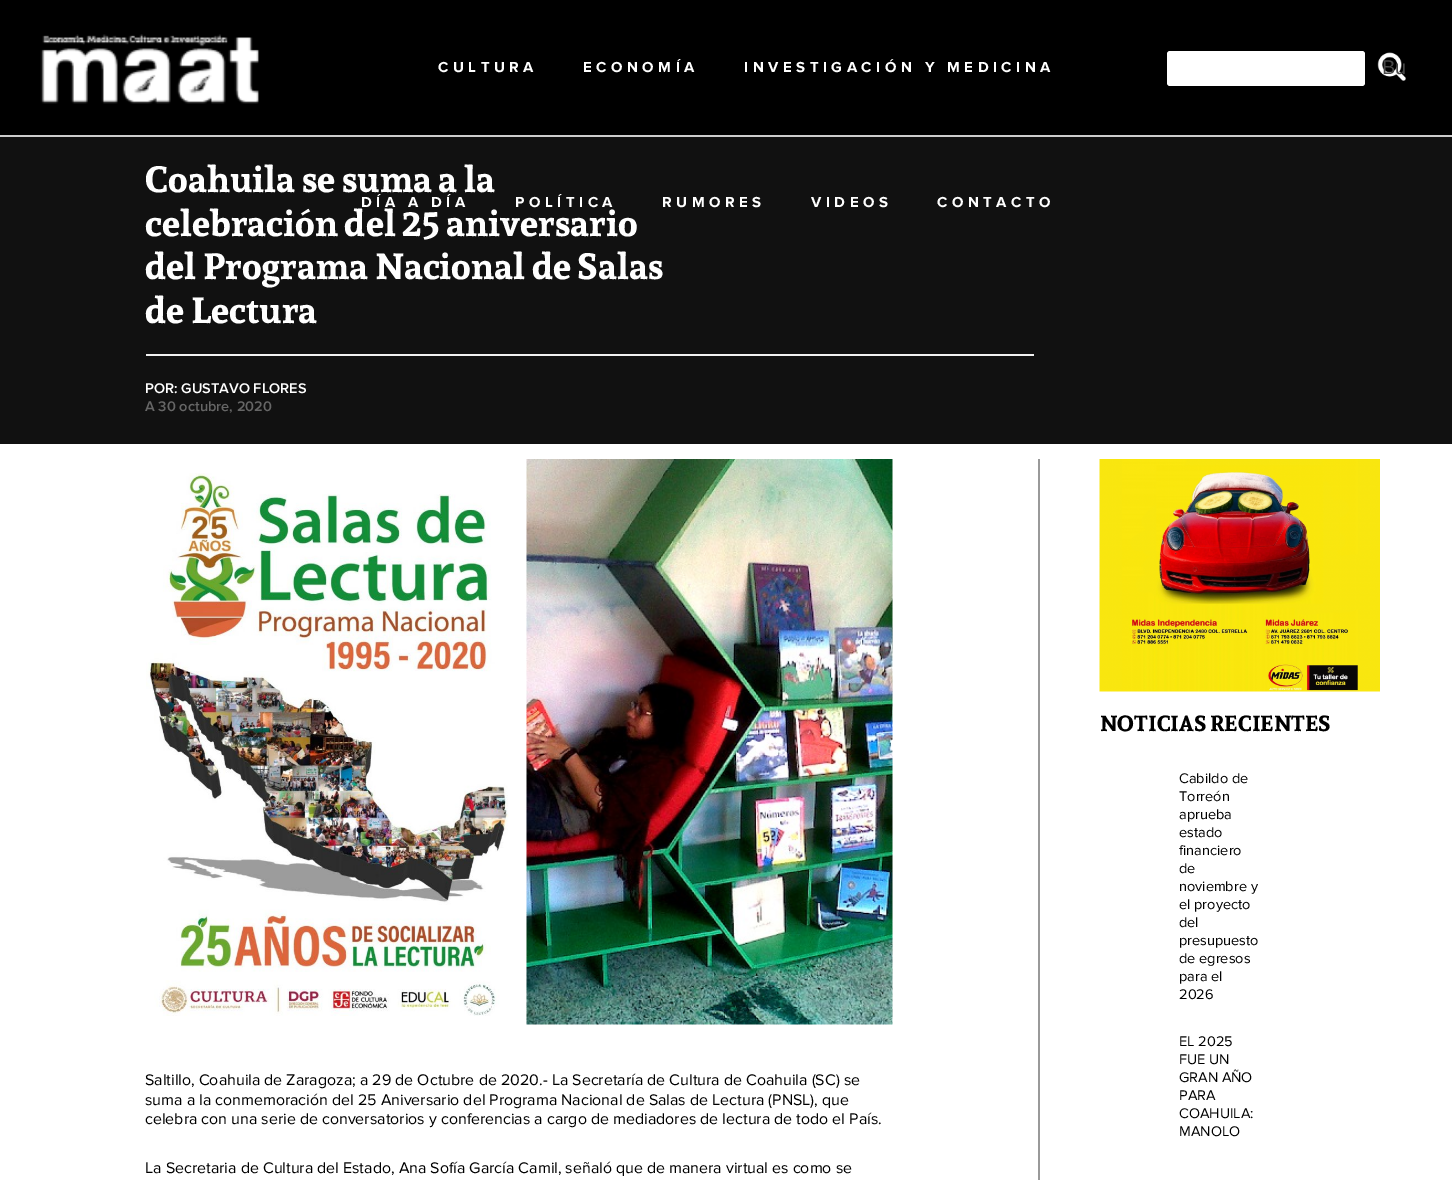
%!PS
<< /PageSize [1452 1180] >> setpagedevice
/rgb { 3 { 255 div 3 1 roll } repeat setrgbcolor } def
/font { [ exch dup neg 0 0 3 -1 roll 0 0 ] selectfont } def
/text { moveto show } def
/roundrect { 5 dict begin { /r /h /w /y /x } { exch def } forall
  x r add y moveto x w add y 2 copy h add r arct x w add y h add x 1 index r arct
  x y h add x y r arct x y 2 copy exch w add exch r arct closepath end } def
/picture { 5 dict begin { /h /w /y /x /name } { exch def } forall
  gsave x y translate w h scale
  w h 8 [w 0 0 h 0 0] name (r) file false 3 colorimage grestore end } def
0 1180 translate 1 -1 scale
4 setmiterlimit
255 255 255 rgb
0 0 1452 1180 rectfill
0 0 0 rgb
0 0 1452 135 rectfill
204 204 204 rgb
0 135 1452 2 rectfill
(img_01.rgb) 40 34 219 70 picture
255 255 255 rgb
1167 51 198 35 3 roundrect fill
(img_02.rgb) 1377 52 29 29 picture
17 17 17 rgb
0 137 1452 307 rectfill
242 242 242 rgb
146 354 888 2 rectfill
153 153 153 rgb
1038 459 2 721 rectfill
(img_03.rgb) 146 473 363 543 picture
(img_04.rgb) 526 459 367 566 picture
(img_05.rgb) 1099 459 281 233 picture
/ProximaNova-Bold 15 font
255 255 255 rgb
438 72 moveto 4.5 0 (CULTURA) ashow
583 72 moveto 4.5 0 (ECONOMÍA) ashow
744 72 moveto 4.5 0 (INVESTIGACIÓN Y MEDICINA) ashow
361 207 moveto 4.5 0 (DÍA A DÍA) ashow
515 207 moveto 4.5 0 (POLÍTICA) ashow
662 207 moveto 4.5 0 (RUMORES) ashow
811 207 moveto 4.5 0 (VIDEOS) ashow
937 207 moveto 4.5 0 (CONTACTO) ashow
/LiberationSans-Regular 20 font
72 72 72 rgb
(Bu) 1382 74 text
/Sura-Bold 36.25 font
255 255 255 rgb
(Coahuila se suma a la) 145 192 text
(celebración del 25 aniversario) 145 236 text
(del Programa Nacional de Salas) 145 279 text
(de Lectura) 145 323 text
/ProximaNova-SemiBold 14.5 font
(POR: GUSTAVO FLORES) 145 393 text
102 102 102 rgb
(A 30 octubre, 2020) 145 411 text
/ProximaNova-Regular 15.95 font
0 0 0 rgb
(Saltillo, Coahuila de Zaragoza; a 29 de Octubre de 2020.- La Secretaría de Cultura de Coahuila \(SC\) se) 145 1085 text
(suma a la conmemoración del 25 Aniversario del Programa Nacional de Salas de Lectura \(PNSL\), que) 145 1105 text
(celebra con una serie de conversatorios y conferencias a cargo de mediadores de lectura de todo el País.) 145 1124 text
(La Secretaria de Cultura del Estado, Ana Sofía García Camil, señaló que de manera virtual es como se) 145 1173 text
/Sura-Bold 21.75 font
(NOTICIAS RECIENTES) 1100 731 text
/ProximaNova-Regular 14.5 font
(Cabildo de) 1179 783 text
(Torreón) 1179 801 text
(aprueba) 1179 819 text
(estado) 1179 837 text
(financiero) 1179 855 text
(de) 1179 873 text
(noviembre y) 1179 891 text
(el proyecto) 1179 909 text
(del) 1179 927 text
(presupuesto) 1179 945 text
(de egresos) 1179 963 text
(para el) 1179 981 text
(2026) 1179 999 text
(EL 2025) 1179 1046 text
(FUE UN) 1179 1064 text
(GRAN AÑO) 1179 1082 text
(PARA) 1179 1100 text
(COAHUILA:) 1179 1118 text
(MANOLO) 1179 1136 text
showpage
